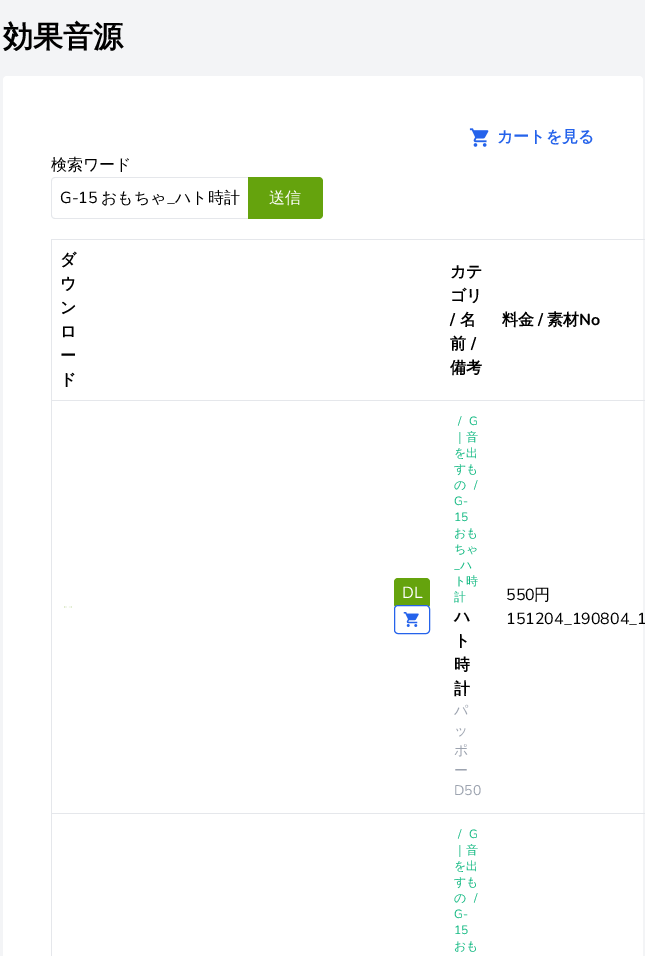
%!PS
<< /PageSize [645 956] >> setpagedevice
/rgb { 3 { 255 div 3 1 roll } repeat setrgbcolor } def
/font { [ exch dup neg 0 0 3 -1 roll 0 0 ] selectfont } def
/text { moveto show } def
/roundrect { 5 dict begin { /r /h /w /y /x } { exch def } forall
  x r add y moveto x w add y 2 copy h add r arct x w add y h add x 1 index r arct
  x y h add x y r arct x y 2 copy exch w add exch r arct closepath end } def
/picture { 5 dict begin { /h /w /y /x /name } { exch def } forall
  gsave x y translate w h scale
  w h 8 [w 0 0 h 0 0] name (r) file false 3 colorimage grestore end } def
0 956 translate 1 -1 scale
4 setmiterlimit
243 244 246 rgb
0 0 645 956 rectfill
255 255 255 rgb
3 76 640 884 4 roundrect fill
(img_01.rgb) 469 128 20 19 picture
229 231 235 rgb
55 177 moveto 193 0 rlineto 0 42 rlineto -193 0 rlineto -2 0 -4 -2 -4 -4 rcurveto 0 -34 rlineto 0 -2 2 -4 4 -4 rcurveto closepath 55 178 moveto 193 0 rlineto 0 40 rlineto -193 0 rlineto -2 0 -3 -1 -3 -3 rcurveto 0 -34 rlineto 0 -2 1 -3 3 -3 rcurveto closepath eofill
101 163 13 rgb
248 177 moveto 71 0 rlineto 2 0 4 2 4 4 rcurveto 0 34 rlineto 0 2 -2 4 -4 4 rcurveto -71 0 rlineto closepath fill
229 231 235 rgb
51 239 594 1 rectfill
51 239 1 717 rectfill
51 400 594 1 rectfill
51 813 594 1 rectfill
(img_02.rgb) 64 606 8 2 picture
101 163 13 rgb
394 578 36 30 4 roundrect fill
255 255 255 rgb
394.5 605.5 35 28 3.5 roundrect gsave fill grestore
37 99 235 rgb
stroke
(img_03.rgb) 403 612 16 15 picture
/WenQuanYiZenHei-Bold 30 font
0 0 0 rgb
(効果音源) 3 47 text
/WenQuanYiZenHei-Bold 16 font
37 99 235 rgb
(カートを見る) 497 142 text
/WenQuanYiZenHei-Medium 16 font
0 0 0 rgb
(検索ワード) 51 170 text
/Nunito-ExtraLight 16 font
(G-15) 60 203 text
/WenQuanYiZenHei-Medium 16 font
(おもちゃ) 101 203 text
/Nunito-ExtraLight 16 font
(_) 167 203 text
/WenQuanYiZenHei-Medium 16 font
(ハト時計) 175 203 text
255 255 255 rgb
(送信) 269 203 text
/WenQuanYiZenHei-Bold 16 font
0 0 0 rgb
(ダ) 60 265 text
(ウ) 60 289 text
(ン) 60 313 text
(ロ) 60 337 text
(ー) 60 361 text
(ド) 60 385 text
(カテ) 450 277 text
(ゴリ) 450 301 text
/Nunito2-ExtraLight 16 font
(/) 450 325 text
/WenQuanYiZenHei-Bold 16 font
(名) 460 325 text
(前) 450 349 text
/Nunito2-ExtraLight 16 font
(/) 471 349 text
/WenQuanYiZenHei-Bold 16 font
(備考) 450 373 text
(料金) 502 325 text
/Nunito2-ExtraLight 16 font
(/) 538 325 text
/WenQuanYiZenHei-Bold 16 font
(素材) 547 325 text
/Nunito2-ExtraLight 16 font
(No) 579 325 text
/Nunito-ExtraLight 16 font
255 255 255 rgb
(DL) 402 598 text
/Nunito-ExtraLight 12 font
16 185 129 rgb
(/) 458 425 text
(G) 469 425 text
/WenQuanYiZenHei-Medium 12 font
(｜音) 454 441 text
(を出) 454 457 text
(すも) 454 473 text
(の) 454 489 text
/Nunito-ExtraLight 12 font
(/) 474 489 text
(G-) 454 505 text
(15) 454 521 text
/WenQuanYiZenHei-Medium 12 font
(おも) 454 537 text
(ちゃ) 454 553 text
(ハ) 460 569 text
/Nunito-ExtraLight 12 font
(_) 454 569 text
/WenQuanYiZenHei-Medium 12 font
(ト時) 454 585 text
(計) 454 601 text
/WenQuanYiZenHei-Bold 16 font
0 0 0 rgb
(ハ) 454 622 text
(ト) 454 646 text
(時) 454 670 text
(計) 454 694 text
/WenQuanYiZenHei-Medium 14 font
156 163 175 rgb
(パ) 454 715 text
(ッ) 454 735 text
(ポ) 454 755 text
(ー) 454 775 text
/Nunito-ExtraLight 14 font
(D50) 454 795 text
/Nunito-ExtraLight 16 font
0 0 0 rgb
(550) 506 600 text
/WenQuanYiZenHei-Medium 16 font
(円) 534 600 text
/Nunito-ExtraLight 16 font
(151204_190804_1) 506 624 text
/Nunito-ExtraLight 12 font
16 185 129 rgb
(/) 458 838 text
(G) 469 838 text
/WenQuanYiZenHei-Medium 12 font
(｜音) 454 854 text
(を出) 454 870 text
(すも) 454 886 text
(の) 454 902 text
/Nunito-ExtraLight 12 font
(/) 474 902 text
(G-) 454 918 text
(15) 454 934 text
/WenQuanYiZenHei-Medium 12 font
(おも) 454 950 text
showpage
